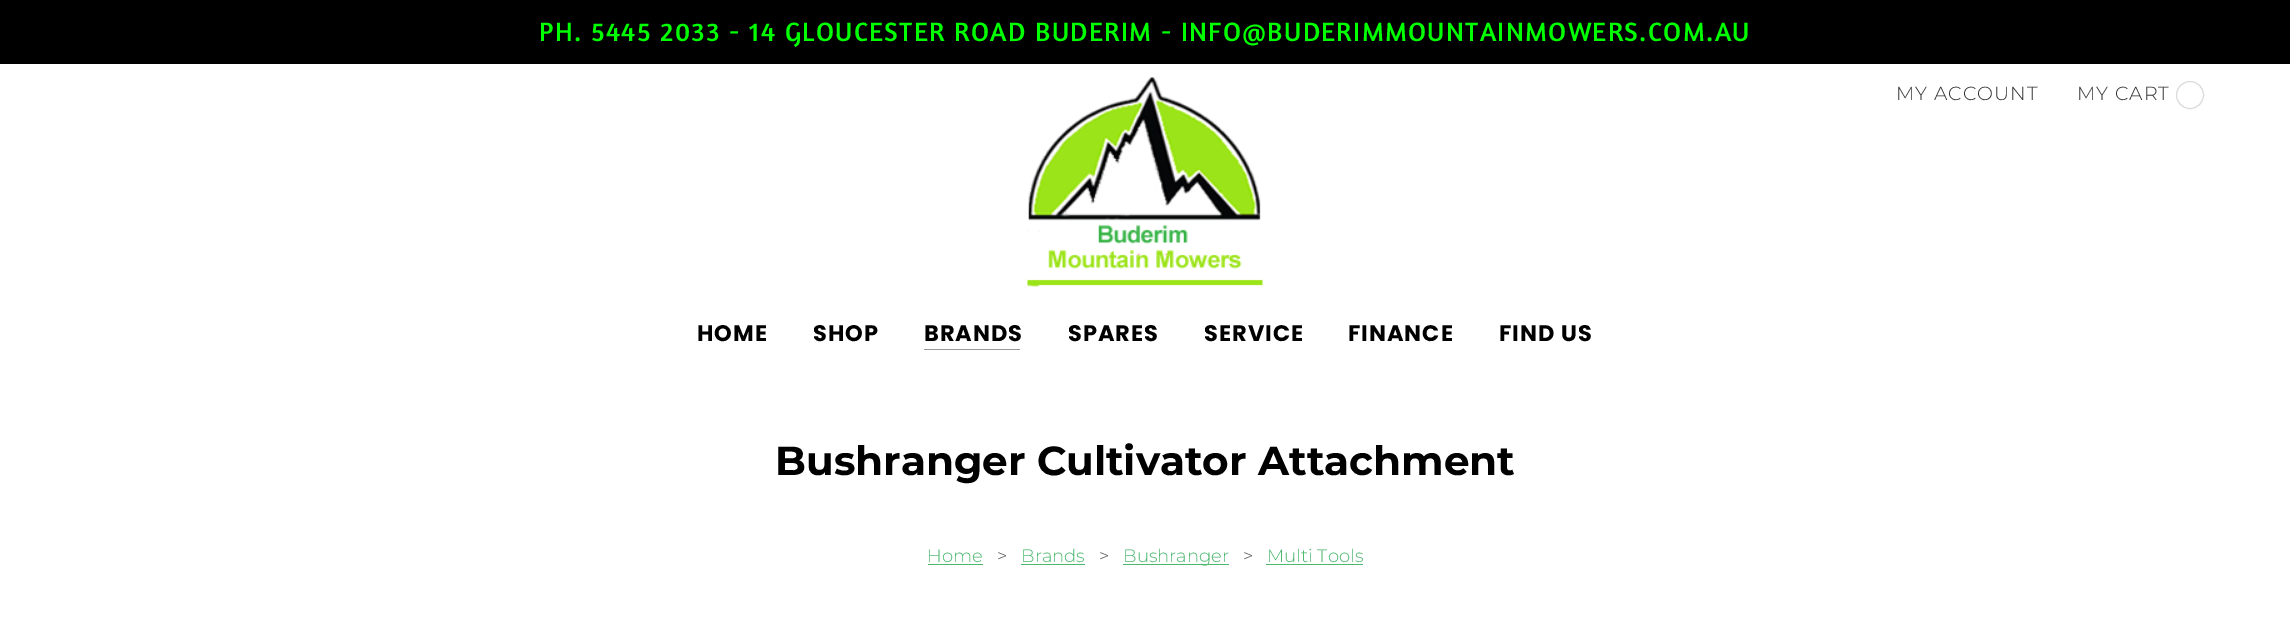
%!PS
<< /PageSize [2290 627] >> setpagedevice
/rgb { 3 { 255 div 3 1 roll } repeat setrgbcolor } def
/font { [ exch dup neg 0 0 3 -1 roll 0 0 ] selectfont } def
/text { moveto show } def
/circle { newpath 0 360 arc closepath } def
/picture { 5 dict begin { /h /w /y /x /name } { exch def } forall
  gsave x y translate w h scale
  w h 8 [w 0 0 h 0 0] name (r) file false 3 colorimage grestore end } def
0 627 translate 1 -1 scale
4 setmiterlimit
255 255 255 rgb
0 0 2290 627 rectfill
0 0 0 rgb
0 0 2290 64 rectfill
219 219 219 rgb
2190 95 13.5 circle stroke
(img_01.rgb) 1027 77 236 210 picture
153 153 153 rgb
924 349 96 1 rectfill
77 184 112 rgb
928 564 55 1 rectfill
1021 564 64 1 rectfill
1123 564 106 1 rectfill
1266 564 97 1 rectfill
/Amaranth-Regular 27 font
0 255 0 rgb
539 41 moveto 1.35 0 (PH. 5445 2033 - 14 GLOUCESTER ROAD BUDERIM - INFO@BUDERIMMOUNTAINMOWERS.COM.AU) ashow
/Montserrat-Light 19 font
51 51 51 rgb
1896 100 moveto 1 0 (MY ACCOUNT) ashow
2077 100 moveto 1 0 (MY CART) ashow
/Poppins-Bold 22.5 font
0 0 0 rgb
697 341 moveto 1 0 (HOME) ashow
813 341 moveto 1 0 (SHOP) ashow
924 341 moveto 1 0 (BRANDS) ashow
1068 341 moveto 1 0 (SPARES) ashow
1204 341 moveto 1 0 (SERVICE) ashow
1348 341 moveto 1 0 (FINANCE) ashow
1499 341 moveto 1 0 (FIND US) ashow
/Montserrat-Bold 40.5 font
(Bushranger Cultivator Attachment) 775 475 text
/Montserrat-Light 18 font
77 184 112 rgb
(Home) 927 562 text
77 77 77 rgb
(>) 997 562 text
77 184 112 rgb
(Brands) 1021 562 text
77 77 77 rgb
(>) 1099 562 text
77 184 112 rgb
(Bushranger) 1123 562 text
77 77 77 rgb
(>) 1243 562 text
77 184 112 rgb
(Multi Tools) 1267 562 text
showpage
